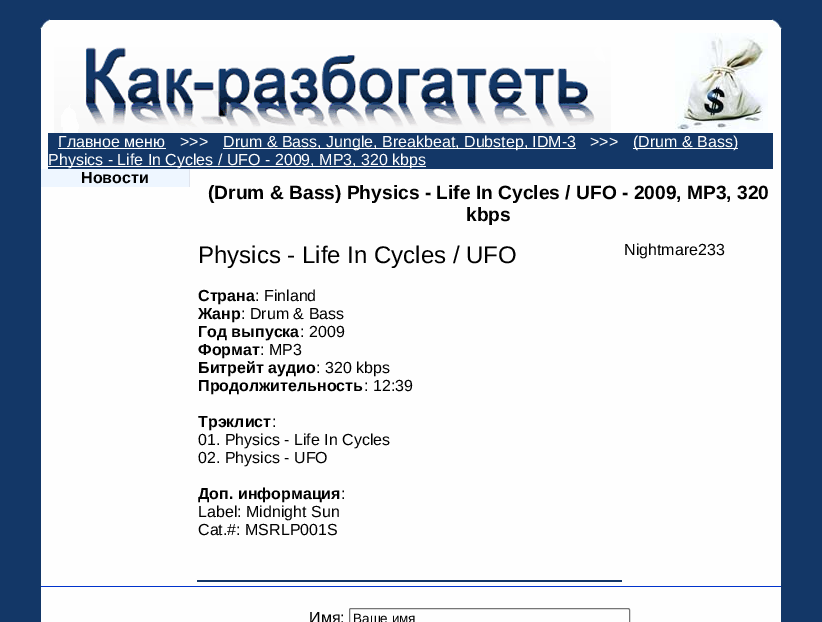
%!PS
<< /PageSize [822 622] >> setpagedevice
/rgb { 3 { 255 div 3 1 roll } repeat setrgbcolor } def
/font { [ exch dup neg 0 0 3 -1 roll 0 0 ] selectfont } def
/text { moveto show } def
/roundrect { 5 dict begin { /r /h /w /y /x } { exch def } forall
  x r add y moveto x w add y 2 copy h add r arct x w add y h add x 1 index r arct
  x y h add x y r arct x y 2 copy exch w add exch r arct closepath end } def
/picture { 5 dict begin { /h /w /y /x /name } { exch def } forall
  gsave x y translate w h scale
  w h 8 [w 0 0 h 0 0] name (r) file false 3 colorimage grestore end } def
0 622 translate 1 -1 scale
4 setmiterlimit
19 55 103 rgb
0 0 822 622 rectfill
254 254 254 rgb
41 20 740 602 rectfill
(img_01.rgb) 40 19 10 10 picture
(img_02.rgb) 772 19 10 10 picture
(img_03.rgb) 54 47 557 86 picture
(img_04.rgb) 675 33 93 100 picture
19 55 103 rgb
48 133 725 36 rectfill
255 255 255 rgb
58 148 108 1 rectfill
223 148 353 1 rectfill
633 148 105 1 rectfill
48 166 378 1 rectfill
238 246 255 rgb
41 169 148 18 rectfill
224 228 237 rgb
189 169 1 18 rectfill
19 55 103 rgb
197 580 425 2 rectfill
0 51 204 rgb
41 586 740 1 rectfill
118 118 118 rgb
349.5 608.5 280 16 1.5 roundrect stroke
/LiberationSans-Regular 16 font
255 255 255 rgb
(Главное меню) 58 147 text
(>>>) 180 147 text
(Drum & Bass, Jungle, Breakbeat, Dubstep, IDM-3) 223 147 text
(>>>) 590 147 text
(\(Drum & Bass\)) 633 147 text
(Physics - Life In Cycles / UFO - 2009, MP3, 320 kbps) 48 165 text
/LiberationSans-Bold 16 font
0 0 0 rgb
(Новости) 81 183 text
/LiberationSans-Bold 19.2 font
(\(Drum & Bass\) Physics - Life In Cycles / UFO - 2009, MP3, 320) 208 199 text
(kbps) 466 221 text
/LiberationSans-Regular 24 font
(Physics - Life In Cycles / UFO) 198 263 text
/LiberationSans-Bold 16 font
(Страна) 198 301 text
/LiberationSans-Regular 16 font
(: Finland) 255 301 text
/LiberationSans-Bold 16 font
(Жанр) 198 319 text
/LiberationSans-Regular 16 font
(: Drum & Bass) 241 319 text
/LiberationSans-Bold 16 font
(Год выпуска) 198 337 text
/LiberationSans-Regular 16 font
(: 2009) 300 337 text
/LiberationSans-Bold 16 font
(Формат) 198 355 text
/LiberationSans-Regular 16 font
(: MP3) 260 355 text
/LiberationSans-Bold 16 font
(Битрейт аудио) 198 373 text
/LiberationSans-Regular 16 font
(: 320 kbps) 316 373 text
/LiberationSans-Bold 16 font
(Продолжительность) 198 391 text
/LiberationSans-Regular 16 font
(: 12:39) 364 391 text
/LiberationSans-Bold 16 font
(Трэклист) 198 427 text
/LiberationSans-Regular 16 font
(:) 272 427 text
(01. Physics - Life In Cycles) 198 445 text
(02. Physics - UFO) 198 463 text
/LiberationSans-Bold 16 font
(Доп. информация) 198 499 text
/LiberationSans-Regular 16 font
(:) 341 499 text
(Label: Midnight Sun) 198 517 text
(Cat.#: MSRLP001S) 198 535 text
(Nightmare233) 624 255 text
(Имя:) 309 623 text
/LiberationSans-Regular 13.5 font
(Ваше имя) 353 623 text
showpage
